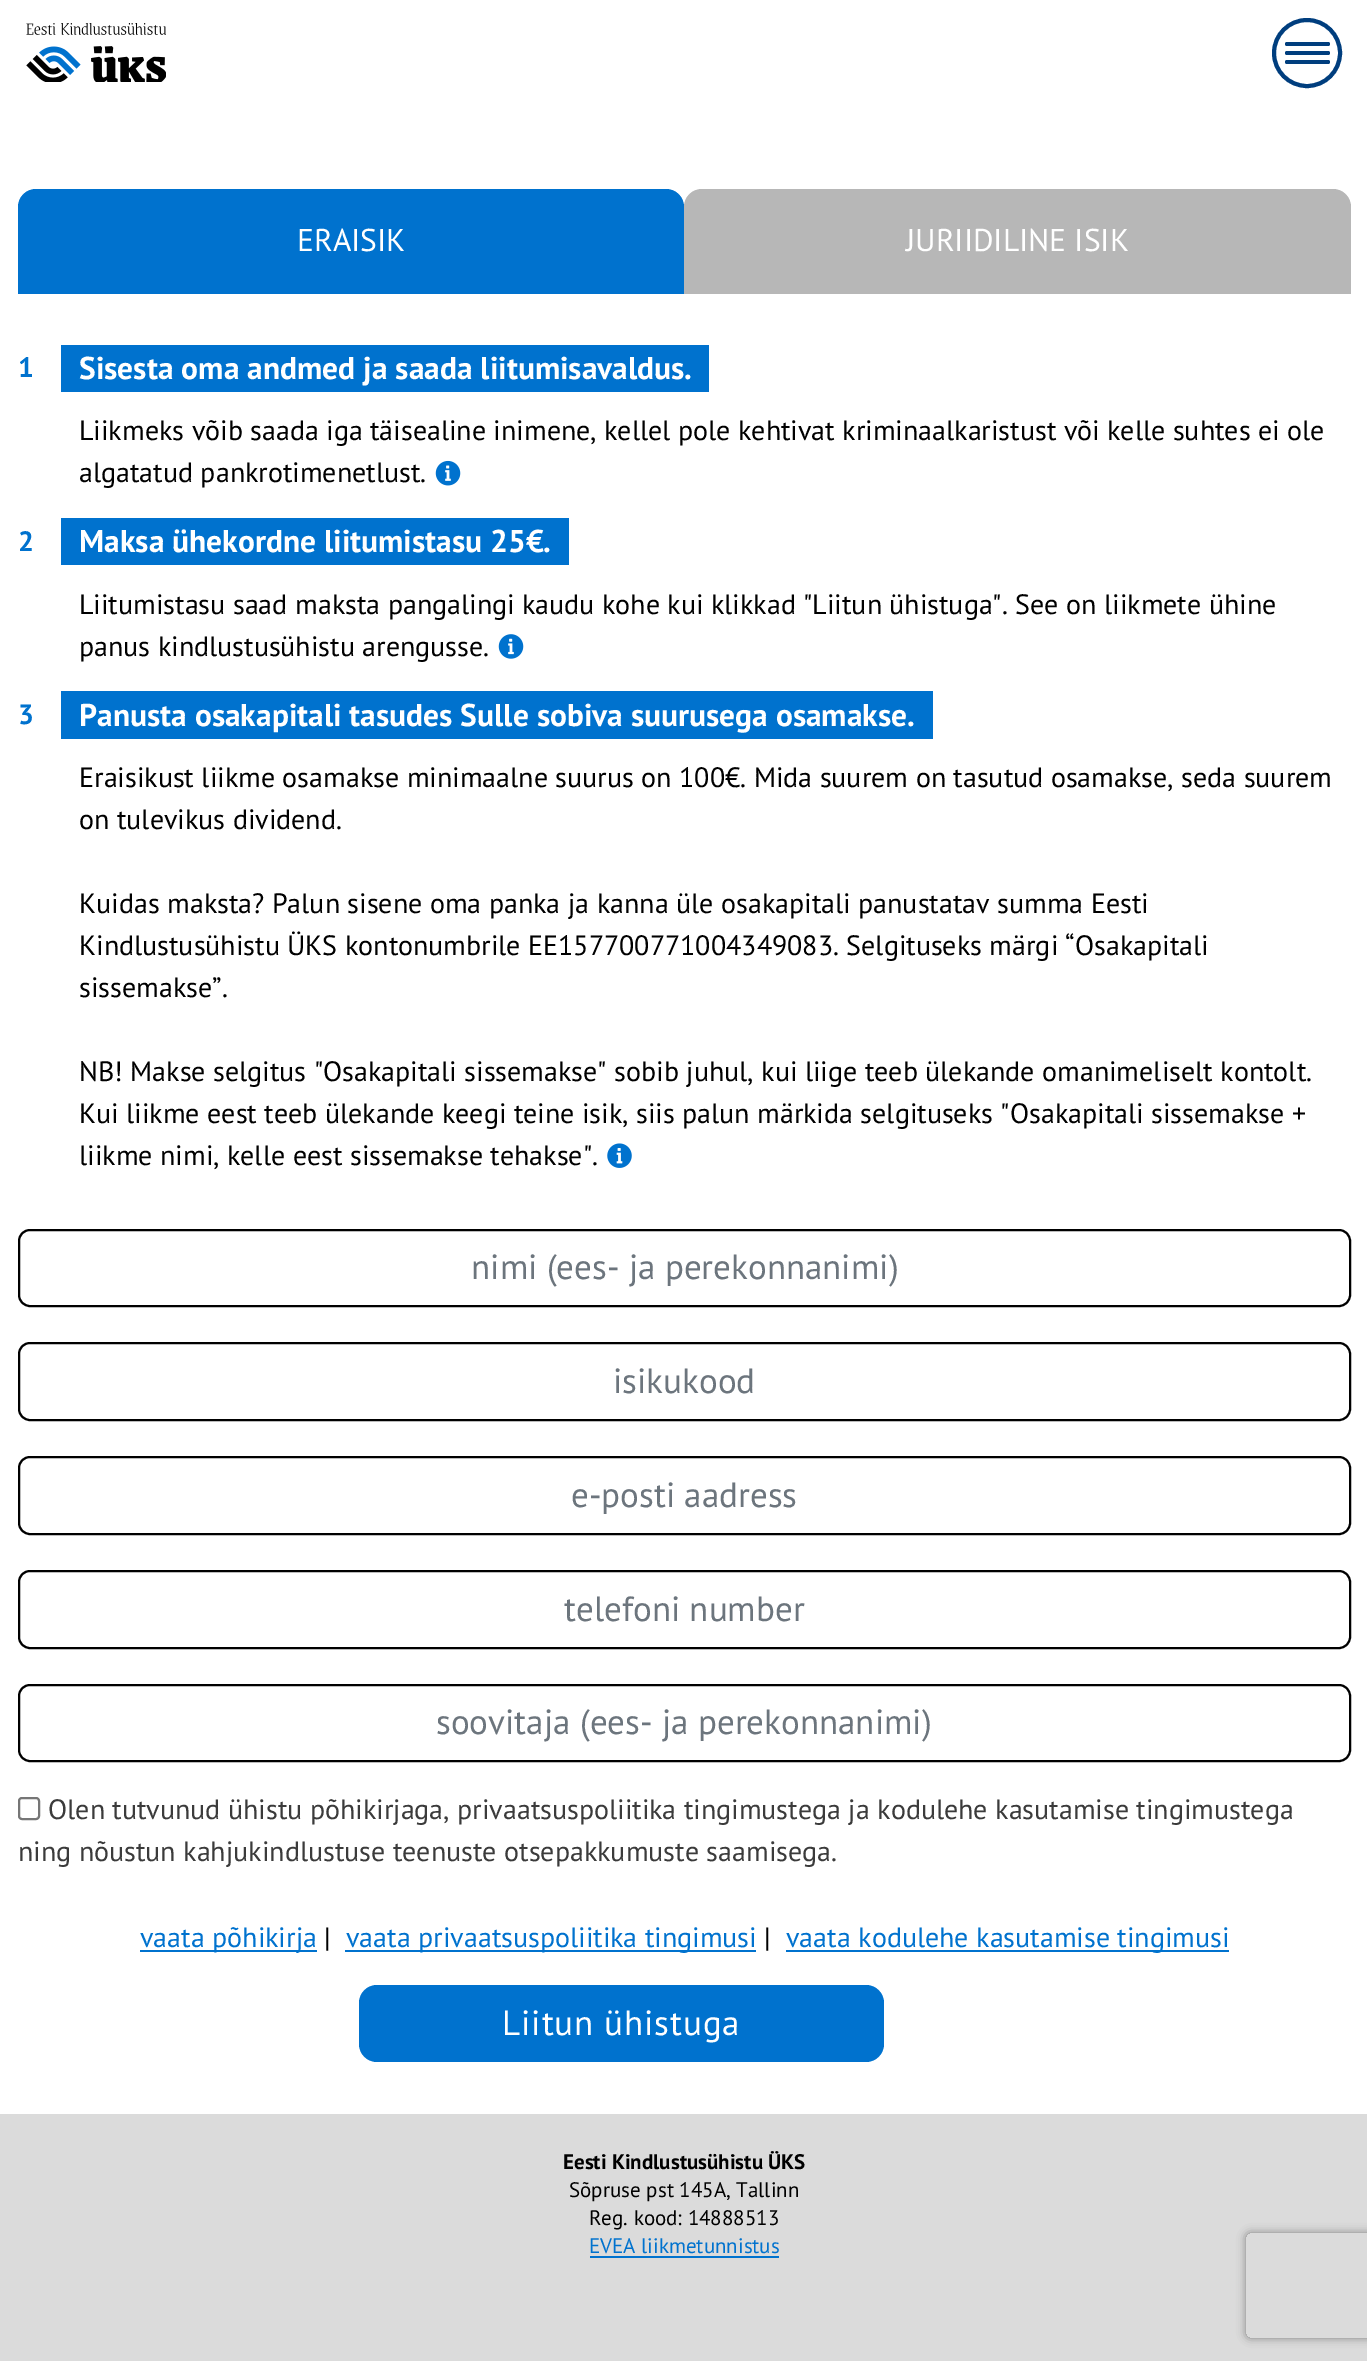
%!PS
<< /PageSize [1367 2361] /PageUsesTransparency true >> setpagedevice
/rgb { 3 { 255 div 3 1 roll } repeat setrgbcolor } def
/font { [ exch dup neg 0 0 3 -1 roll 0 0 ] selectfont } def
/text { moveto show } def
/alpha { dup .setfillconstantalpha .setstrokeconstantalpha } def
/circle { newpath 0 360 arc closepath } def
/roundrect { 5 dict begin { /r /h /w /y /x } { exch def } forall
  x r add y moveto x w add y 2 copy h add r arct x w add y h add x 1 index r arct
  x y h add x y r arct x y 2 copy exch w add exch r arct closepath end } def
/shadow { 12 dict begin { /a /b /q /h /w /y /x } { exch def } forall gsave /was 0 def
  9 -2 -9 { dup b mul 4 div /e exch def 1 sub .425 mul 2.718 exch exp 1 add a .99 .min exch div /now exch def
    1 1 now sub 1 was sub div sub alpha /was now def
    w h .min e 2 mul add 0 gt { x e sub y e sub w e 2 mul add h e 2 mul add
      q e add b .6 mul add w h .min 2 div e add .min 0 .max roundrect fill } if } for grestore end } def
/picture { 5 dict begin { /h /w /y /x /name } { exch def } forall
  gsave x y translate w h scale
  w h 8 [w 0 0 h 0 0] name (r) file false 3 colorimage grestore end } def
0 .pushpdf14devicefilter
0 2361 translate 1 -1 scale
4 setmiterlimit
255 255 255 rgb
0 0 1367 2361 rectfill
(img_01.rgb) 26 23 140 59 picture
0 62 126 rgb
4 setlinewidth
1307 53 33 circle stroke
1285 42 45 4 2 roundrect fill
1285 51 45 4 2 roundrect fill
1285 60 45 4 2 roundrect fill
0 114 206 rgb
36 189 moveto 630 0 rlineto 10 0 18 8 18 18 rcurveto 0 87 rlineto -666 0 rlineto 0 -87 rlineto 0 -10 8 -18 18 -18 rcurveto closepath fill
183 183 183 rgb
702 189 moveto 631 0 rlineto 10 0 18 8 18 18 rcurveto 0 87 rlineto -667 0 rlineto 0 -87 rlineto 0 -10 8 -18 18 -18 rcurveto closepath fill
0 114 206 rgb
61 345 18 47 rectfill
79 345 630 47 rectfill
(img_02.rgb) 435 460 26 26 picture
61 518 18 47 rectfill
79 518 490 47 rectfill
(img_03.rgb) 498 634 26 25 picture
61 691 moveto 0 48 rlineto 837 0 rlineto 0 -1 rlineto -819 0 rlineto 0 -47 rlineto 819 0 rlineto closepath fill
96 691 moveto 819 0 rlineto 0 47 rlineto -819 0 rlineto 0 1 rlineto 837 0 rlineto 0 -48 rlineto closepath fill
79 691 836 47 rectfill
(img_04.rgb) 607 1143 25 25 picture
0 0 0 rgb
2 setlinewidth
19 1230 1331 76 11 roundrect stroke
19 1343 1331 77 11 roundrect stroke
19 1457 1331 77 11 roundrect stroke
19 1571 1331 77 11 roundrect stroke
19 1685 1331 76 11 roundrect stroke
118 118 118 rgb
19 1798 20 21 3 roundrect stroke
0 114 206 rgb
140 1950 177 2 rectfill
345 1950 411 2 rectfill
786 1950 443 2 rectfill
359 1985 525 77 18 roundrect fill
219 219 219 rgb
0 2114 1367 247 rectfill
0 114 206 rgb
590 2256 189 2 rectfill
gsave
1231 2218 moveto 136 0 rlineto 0 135 rlineto -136 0 rlineto closepath 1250 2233 moveto 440 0 rlineto 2 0 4 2 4 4 rcurveto 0 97 rlineto 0 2 -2 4 -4 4 rcurveto -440 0 rlineto -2 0 -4 -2 -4 -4 rcurveto 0 -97 rlineto 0 -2 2 -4 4 -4 rcurveto closepath eoclip newpath
128 128 128 rgb
1246 2233 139 105 4 4.5 1 shadow
grestore
/PTSans-Regular 31.5 font
255 255 255 rgb
(ERAISIK) 297 251 text
(JURIIDILINE ISIK) 906 251 text
/PTSans-Bold 28 font
0 114 206 rgb
(1) 18 377 text
/PTSans-Bold 31.5 font
255 255 255 rgb
(Sisesta oma andmed ja saada liitumisavaldus.) 79 379 text
/PTSans-Regular 28 font
0 0 0 rgb
(Liikmeks võib saada iga täisealine inimene, kellel pole kehtivat kriminaalkaristust või kelle suhtes ei ole) 79 440 text
(algatatud pankrotimenetlust.) 79 482 text
/PTSans-Bold 28 font
0 114 206 rgb
(2) 18 551 text
/PTSans-Bold 31.5 font
255 255 255 rgb
(Maksa ühekordne liitumistasu 25€.) 79 552 text
/PTSans-Regular 28 font
0 0 0 rgb
(Liitumistasu saad maksta pangalingi kaudu kohe kui klikkad "Liitun ühistuga". See on liikmete ühine) 79 614 text
(panus kindlustusühistu arengusse.) 79 656 text
/PTSans-Bold 28 font
0 114 206 rgb
(3) 18 724 text
/PTSans-Bold 31.5 font
255 255 255 rgb
(Panusta osakapitali tasudes Sulle sobiva suurusega osamakse.) 79 726 text
/PTSans-Regular 28 font
0 0 0 rgb
(Eraisikust liikme osamakse minimaalne suurus on 100€. Mida suurem on tasutud osamakse, seda suurem) 79 787 text
(on tulevikus dividend.) 79 829 text
(Kuidas maksta? Palun sisene oma panka ja kanna üle osakapitali panustatav summa Eesti) 79 913 text
(Kindlustusühistu ÜKS kontonumbrile EE157700771004349083. Selgituseks märgi “Osakapitali) 79 955 text
(sissemakse”.) 79 997 text
(NB! Makse selgitus "Osakapitali sissemakse" sobib juhul, kui liige teeb ülekande omanimeliselt kontolt.) 79 1081 text
(Kui liikme eest teeb ülekande keegi teine isik, siis palun märkida selgituseks "Osakapitali sissemakse +) 79 1123 text
(liikme nimi, kelle eest sissemakse tehakse".) 79 1165 text
/PTSans-Regular 35 font
108 117 125 rgb
(nimi \(ees- ja perekonnanimi\)) 471 1279 text
(isikukood) 613 1393 text
(e-posti aadress) 571 1507 text
(telefoni number) 564 1621 text
(soovitaja \(ees- ja perekonnanimi\)) 436 1734 text
/PTSans-Regular 28 font
59 59 59 rgb
(Olen tutvunud ühistu põhikirjaga, privaatsuspoliitika tingimustega ja kodulehe kasutamise tingimustega) 48 1819 text
(ning nõustun kahjukindlustuse teenuste otsepakkumuste saamisega.) 18 1861 text
0 114 206 rgb
(vaata põhikirja) 140 1947 text
0 0 0 rgb
(|) 324 1947 text
0 114 206 rgb
(vaata privaatsuspoliitika tingimusi) 346 1947 text
0 0 0 rgb
(|) 764 1947 text
0 114 206 rgb
(vaata kodulehe kasutamise tingimusi) 786 1947 text
/PTSans-Regular 35 font
255 255 255 rgb
502 2035 moveto 0.9 0 (Liitun ühistuga) ashow
/PTSans-Bold 21 font
0 0 0 rgb
(Eesti Kindlustusühistu ÜKS) 563 2169 text
/PTSans-Regular 21 font
(Sõpruse pst 145A, Tallinn) 569 2197 text
(Reg. kood: 14888513) 589 2225 text
0 114 206 rgb
(EVEA liikmetunnistus) 589 2253 text
.poppdf14devicefilter showpage
